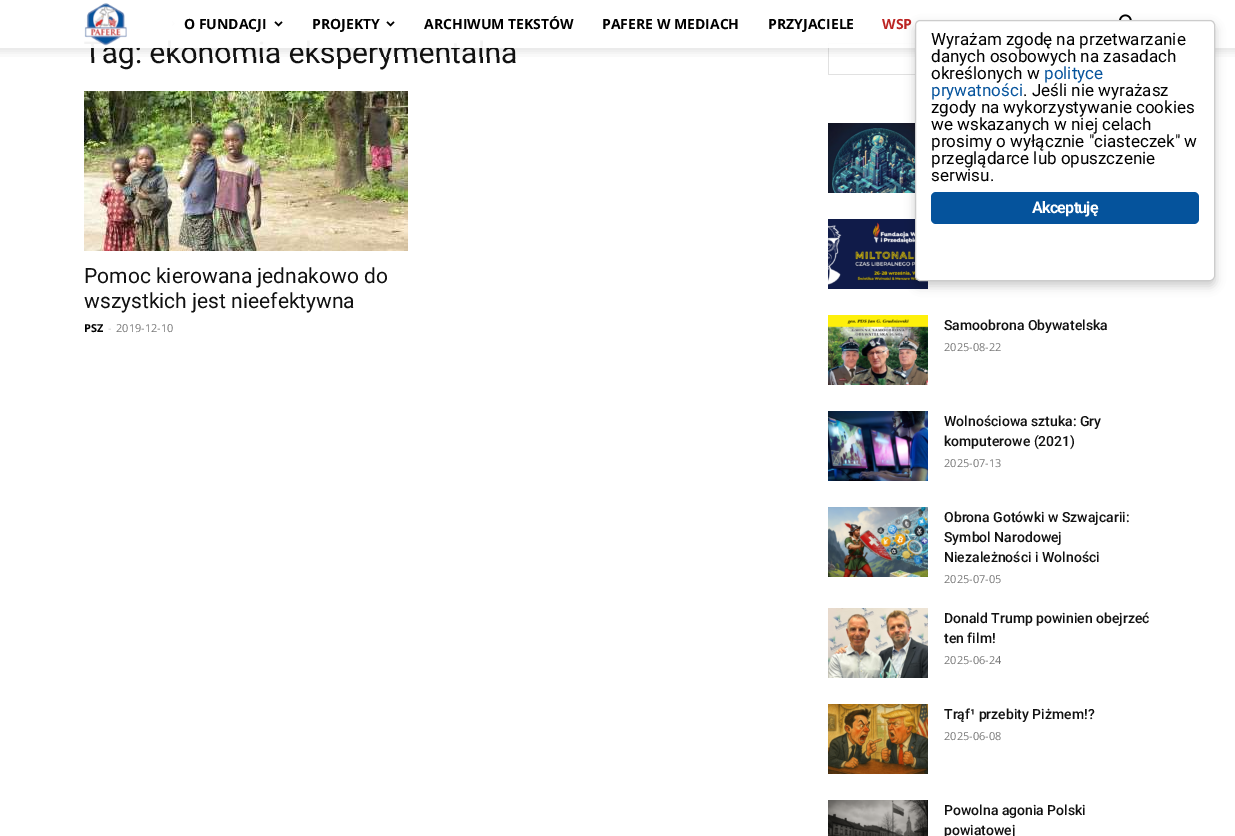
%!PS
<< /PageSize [1235 836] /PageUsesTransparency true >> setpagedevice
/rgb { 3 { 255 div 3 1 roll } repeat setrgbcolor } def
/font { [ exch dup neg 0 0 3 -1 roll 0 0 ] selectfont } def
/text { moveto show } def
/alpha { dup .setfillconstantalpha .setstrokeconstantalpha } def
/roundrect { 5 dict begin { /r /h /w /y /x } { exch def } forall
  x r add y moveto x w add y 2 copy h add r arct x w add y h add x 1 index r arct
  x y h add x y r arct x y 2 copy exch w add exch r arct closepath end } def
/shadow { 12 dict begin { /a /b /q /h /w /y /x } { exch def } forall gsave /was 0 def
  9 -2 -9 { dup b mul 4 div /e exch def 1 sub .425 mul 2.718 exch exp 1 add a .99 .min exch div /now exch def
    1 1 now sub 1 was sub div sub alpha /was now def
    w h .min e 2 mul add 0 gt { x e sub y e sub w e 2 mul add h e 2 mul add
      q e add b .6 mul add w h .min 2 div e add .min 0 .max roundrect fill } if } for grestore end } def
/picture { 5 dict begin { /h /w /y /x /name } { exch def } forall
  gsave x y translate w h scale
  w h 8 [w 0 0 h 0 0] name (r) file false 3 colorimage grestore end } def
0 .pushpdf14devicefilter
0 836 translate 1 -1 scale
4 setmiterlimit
255 255 255 rgb
0 0 1235 836 rectfill
(img_04.rgb) 1119 14 13 6 picture
(img_06.rgb) 172 21 3 5 picture
(img_06.rgb) 214 21 3 5 picture
(img_07.rgb) 84 91 324 160 picture
225 225 225 rgb
828 43 87 1 rectfill
828 74 87 1 rectfill
828 43 1 32 rectfill
(img_08.rgb) 828 123 87 70 picture
(img_09.rgb) 828 219 100 70 picture
(img_10.rgb) 828 315 100 70 picture
(img_11.rgb) 828 411 100 70 picture
(img_12.rgb) 828 507 100 70 picture
(img_13.rgb) 828 608 100 70 picture
(img_14.rgb) 828 704 100 70 picture
(img_15.rgb) 828 800 100 36 picture
/Roboto-Regular 30 font
17 17 17 rgb
(Tag: ekonomia eksperymentalna) 84 63 text
0.95 alpha
255 255 255 rgb
84 21 831 27 rectfill
/OpenSans-Bold 14 font
1 alpha
188 36 35 rgb
(WSP) 882 29 text
0 0 0 rgb
(PRZYJACIELE) 768 29 text
(PAFERE W MEDIACH) 602 29 text
(ARCHIWUM TEKSTÓW) 424 29 text
(img_03.rgb) 386 21 9 6 picture
(PROJEKTY) 312 29 text
(img_02.rgb) 274 21 9 6 picture
(O FUNDACJI) 184 29 text
(img_01.rgb) 84 3 43 43 picture
(img_05.rgb) 0 48 1235 9 picture
/Roboto-Regular 21 font
17 17 17 rgb
(Pomoc kierowana jednakowo do) 84 283 text
(wszystkich jest nieefektywna) 84 308 text
/OpenSans-Bold 11 font
0 0 0 rgb
(PSZ) 84 332 text
/OpenSans-Regular 11 font
204 204 204 rgb
(-) 108 332 text
118 118 118 rgb
(2019-12-10) 116 332 text
/Roboto-Medium 14 font
17 17 17 rgb
(Samoobrona Obywatelska) 944 330 text
/OpenSans-Regular 11 font
118 118 118 rgb
(2025-08-22) 944 351 text
/Roboto-Medium 14 font
17 17 17 rgb
(Wolnościowa sztuka: Gry) 944 426 text
(komputerowe \(2021\)) 944 446 text
/OpenSans-Regular 11 font
118 118 118 rgb
(2025-07-13) 944 467 text
/Roboto-Medium 14 font
17 17 17 rgb
(Obrona Gotówki w Szwajcarii:) 944 522 text
(Symbol Narodowej) 944 542 text
(Niezależności i Wolności) 944 562 text
/OpenSans-Regular 11 font
118 118 118 rgb
(2025-07-05) 944 583 text
/Roboto-Medium 14 font
17 17 17 rgb
(Donald Trump powinien obejrzeć) 944 623 text
(ten film!) 944 643 text
/OpenSans-Regular 11 font
118 118 118 rgb
(2025-06-24) 944 664 text
/Roboto-Medium 14 font
17 17 17 rgb
(Trąf¹ przebity Piżmem!?) 944 719 text
/OpenSans-Regular 11 font
118 118 118 rgb
(2025-06-08) 944 740 text
/Roboto-Medium 14 font
17 17 17 rgb
(Powolna agonia Polski) 944 815 text
(powiatowej) 944 835 text
0 0 0 rgb
915 25 300 261 5 5 0.2 shadow
255 255 255 rgb
915.5 20.5 299 260 4.5 roundrect gsave fill grestore
204 204 204 rgb
stroke
/Roboto-Regular 17 font
0 0 0 rgb
(Wyrażam zgodę na przetwarzanie) 931 45 text
(danych osobowych na zasadach) 931 62 text
(określonych w) 931 79 text
5 83 156 rgb
(polityce) 1044 79 text
(prywatności) 931 96 text
0 0 0 rgb
(. Jeśli nie wyrażasz) 1023 96 text
(zgody na wykorzystywanie cookies) 931 113 text
(we wskazanych w niej celach) 931 130 text
(prosimy o wyłącznie "ciasteczek" w) 931 147 text
(przeglądarce lub opuszczenie) 931 164 text
(serwisu.) 931 181 text
5 83 156 rgb
931 192 268 32 5 roundrect fill
/Roboto-Bold 16 font
255 255 255 rgb
1032 213 moveto -0.75 0 (Akceptuję) ashow
.poppdf14devicefilter showpage
